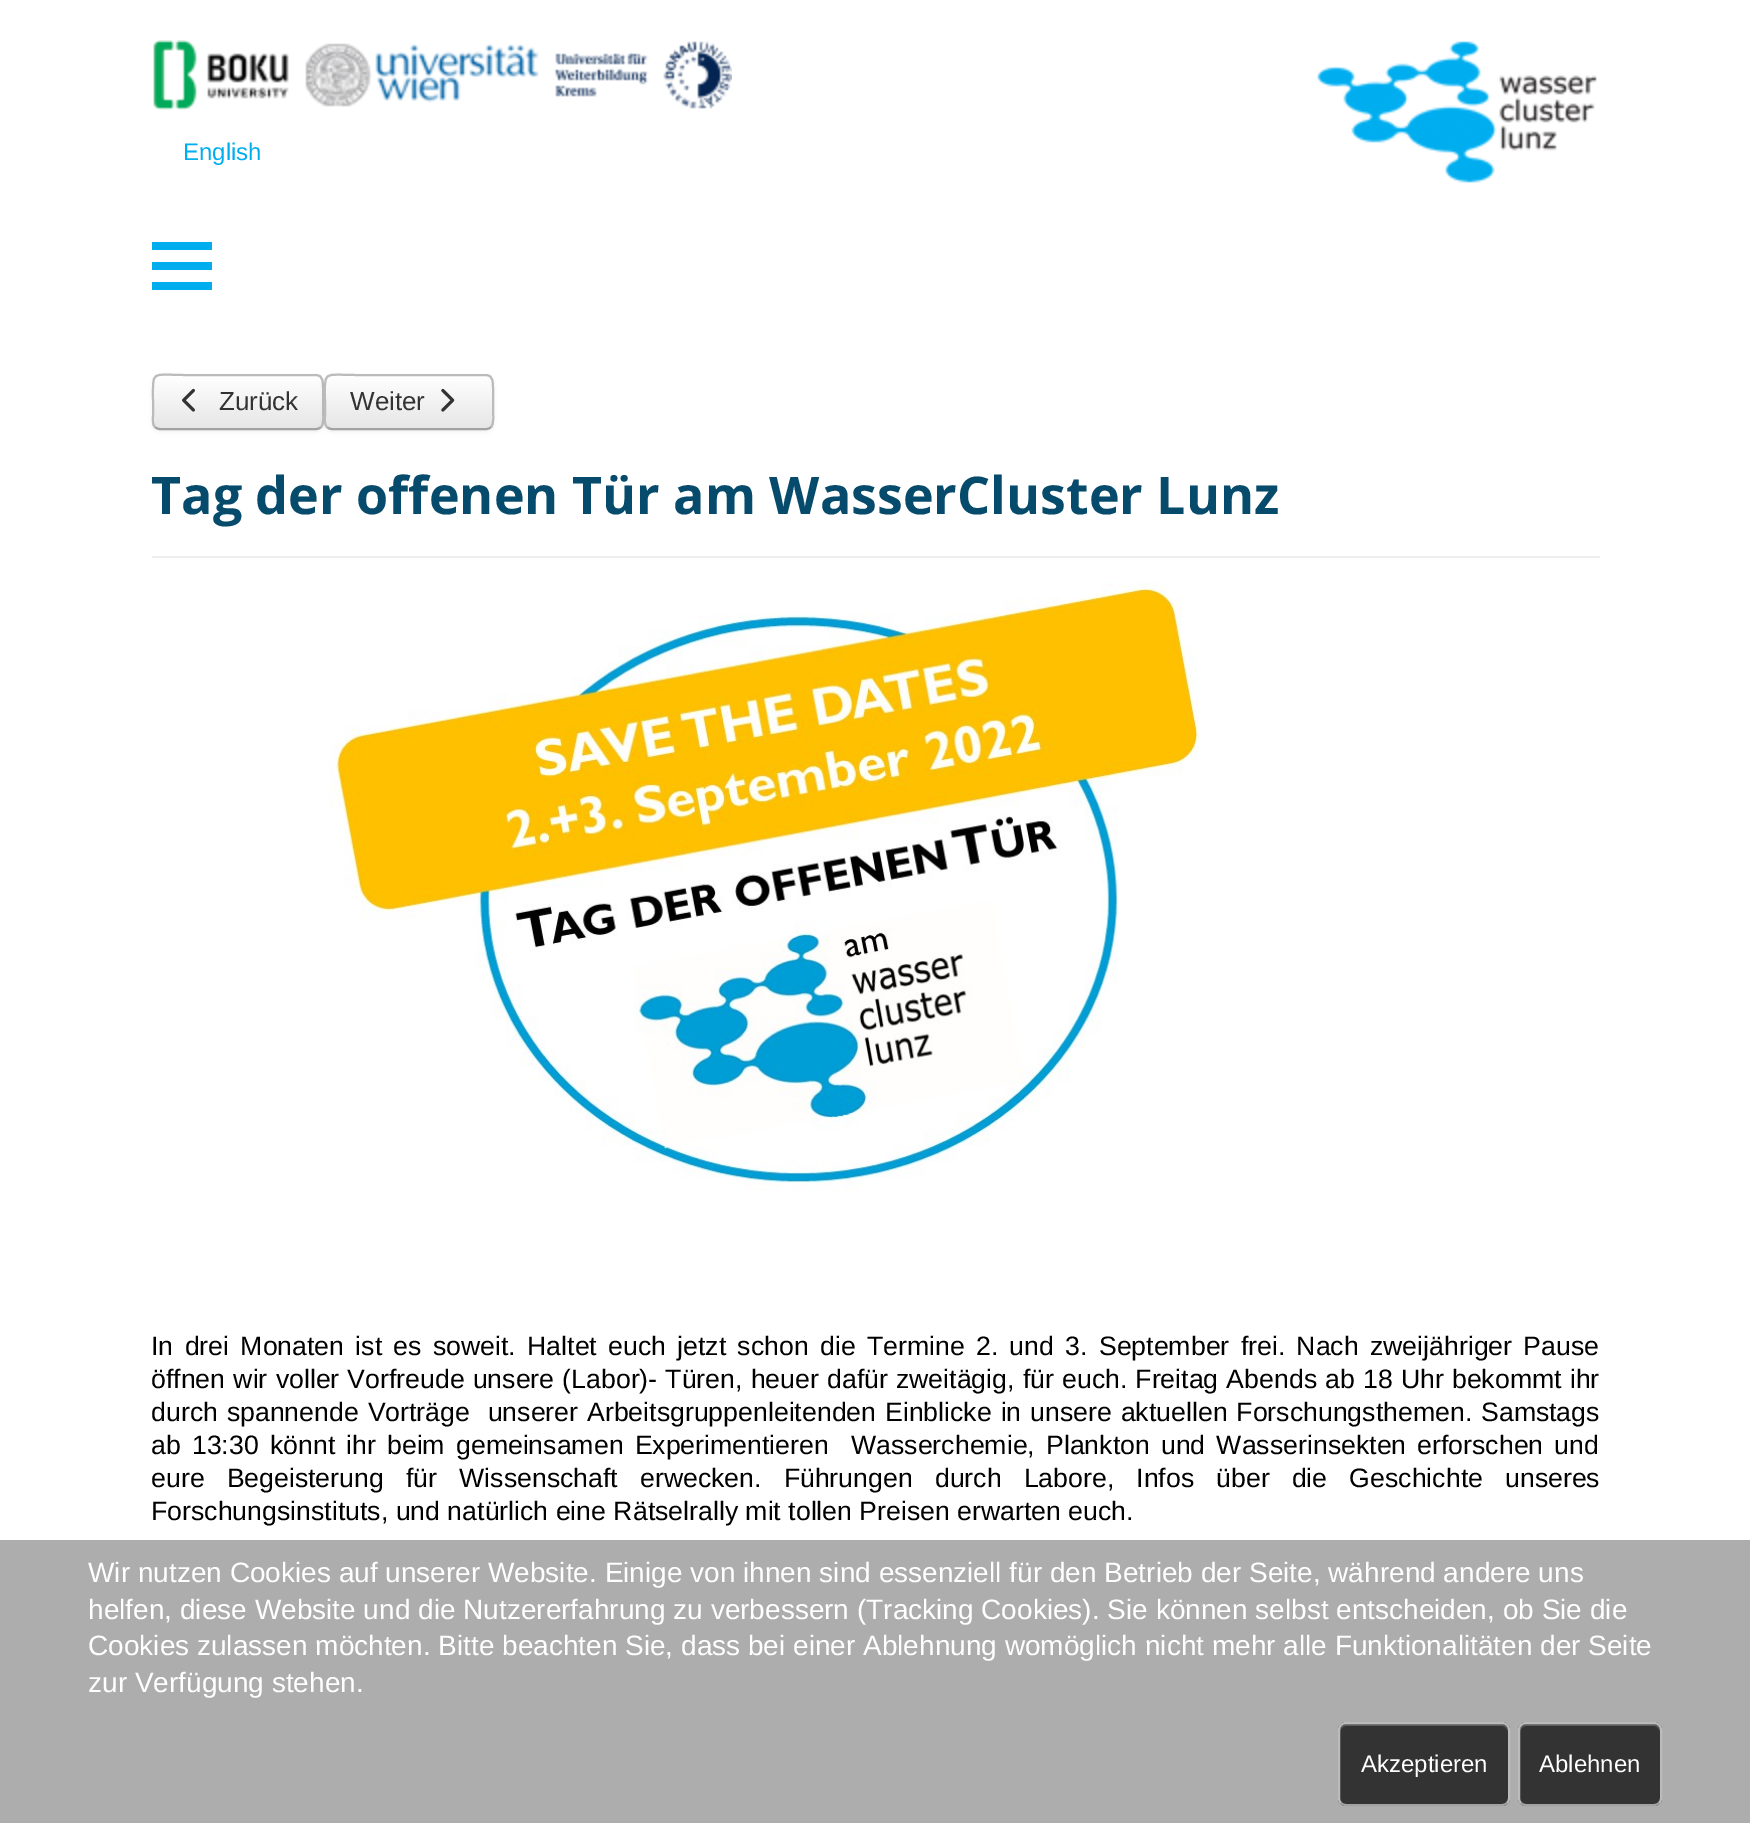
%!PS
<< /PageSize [1750 1823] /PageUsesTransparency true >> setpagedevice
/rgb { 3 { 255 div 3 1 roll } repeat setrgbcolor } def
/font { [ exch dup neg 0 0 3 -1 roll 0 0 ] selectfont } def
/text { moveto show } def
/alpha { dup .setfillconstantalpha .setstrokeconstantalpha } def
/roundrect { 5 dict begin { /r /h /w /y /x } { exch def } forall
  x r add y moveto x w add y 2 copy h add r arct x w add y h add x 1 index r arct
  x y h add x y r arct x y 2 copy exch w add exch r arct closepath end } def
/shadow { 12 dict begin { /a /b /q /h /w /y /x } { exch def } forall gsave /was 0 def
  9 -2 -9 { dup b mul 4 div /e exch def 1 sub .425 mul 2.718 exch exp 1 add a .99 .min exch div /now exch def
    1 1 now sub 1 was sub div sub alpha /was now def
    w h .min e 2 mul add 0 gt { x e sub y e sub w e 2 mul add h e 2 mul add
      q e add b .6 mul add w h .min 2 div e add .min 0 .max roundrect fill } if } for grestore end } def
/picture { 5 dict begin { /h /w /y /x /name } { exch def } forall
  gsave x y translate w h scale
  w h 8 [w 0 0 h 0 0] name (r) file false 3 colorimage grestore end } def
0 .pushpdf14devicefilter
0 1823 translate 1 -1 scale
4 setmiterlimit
255 255 255 rgb
0 0 1750 1823 rectfill
(img_01.rgb) 153 40 136 70 picture
(img_02.rgb) 305 43 234 64 picture
(img_03.rgb) 554 41 178 68 picture
(img_04.rgb) 1317 41 280 142 picture
0 174 239 rgb
152 242 60 8 rectfill
152 262 60 8 rectfill
152 282 60 8 rectfill
0 0 0 rgb
152 376 172 56 8 2 0.05 shadow
245 245 245 rgb
152 374 172 56 8 roundrect fill
gsave
152 374 172 56 8 roundrect clip newpath
gsave 152 376 moveto 172 0 rlineto 0 52 rlineto -172 0 rlineto closepath clip newpath
<< /ShadingType 2 /ColorSpace /DeviceRGB /Coords [238 376 238 428] /Extend [true true] /Function << /FunctionType 2 /Domain [0 1] /C0 [1 1 1] /C1 [0.902 0.902 0.902] /N 1 >> >> shfill grestore
grestore
162 162 162 rgb
2 setlinewidth
321 427 moveto -1.5 1.5 -3 2 -5 2 rcurveto -156 0 rlineto -2 0 -3.5 -0.5 -5 -2 rcurveto stroke
187 187 187 rgb
155 427 moveto -3 -3 -2 -8 -2 -11.5 rcurveto 0 -13.5 rlineto 0 -33 -3 -27 33 -27 rcurveto 130 0 rlineto 7.5 0 7 8.5 7 13.5 rcurveto 0 20 rlineto 0 4.5 1.5 14.5 -2 18.5 rcurveto stroke
(img_05.rgb) 182 388 13 24 picture
0 0 0 rgb
324 376 170 56 8 2 0.05 shadow
245 245 245 rgb
324 374 170 56 8 roundrect fill
gsave
324 374 170 56 8 roundrect clip newpath
gsave 324 376 moveto 170 0 rlineto 0 52 rlineto -170 0 rlineto closepath clip newpath
<< /ShadingType 2 /ColorSpace /DeviceRGB /Coords [409 376 409 428] /Extend [true true] /Function << /FunctionType 2 /Domain [0 1] /C0 [1 1 1] /C1 [0.902 0.902 0.902] /N 1 >> >> shfill grestore
grestore
162 162 162 rgb
491 427 moveto -1.5 1.5 -3 2 -5 2 rcurveto -154 0 rlineto -2 0 -3.5 -0.5 -5 -2 rcurveto stroke
187 187 187 rgb
327 427 moveto -3 -3 -2 -8 -2 -11.5 rcurveto 0 -13.5 rlineto 0 -32.5 -3.5 -27 32.5 -27 rcurveto 128.5 0 rlineto 7.5 0 7 8.5 7 13.5 rcurveto 0 20 rlineto 0 4.5 1.5 14.5 -2 18.5 rcurveto stroke
(img_06.rgb) 441 388 14 24 picture
238 238 238 rgb
152 556 1448 2 rectfill
(img_07.rgb) 329 582 870 609 picture
173 173 173 rgb
0 1540 1750 283 rectfill
51 51 51 rgb
1338 1722 172 84 8 roundrect fill
92 92 92 rgb
1346 1726 moveto 156 0 rlineto 3 0 6 3 6 6 rcurveto 0 -2 rlineto 0 -3 -3 -6 -6 -6 rcurveto -156 0 rlineto -3 0 -6 3 -6 6 rcurveto 0 2 rlineto 0 -3 3 -6 6 -6 rcurveto closepath fill
162 162 162 rgb
1507 1803 moveto -1.5 1.5 -3 2 -5 2 rcurveto -156 0 rlineto -2 0 -3.5 -0.5 -5 -2 rcurveto stroke
187 187 187 rgb
1341 1803 moveto -1.5 -1.5 -2 -3 -2 -5 rcurveto 0 -68 rlineto 0 -2 0.5 -3.5 2 -5 rcurveto 1.5 -1.5 3 -2 5 -2 rcurveto 156 0 rlineto 2 0 3.5 0.5 5 2 rcurveto 1.5 1.5 2 3 2 5 rcurveto 0 68 rlineto 0 2 -0.5 3.5 -2 5 rcurveto stroke
51 51 51 rgb
1518 1722 144 84 8 roundrect fill
92 92 92 rgb
1526 1726 moveto 128 0 rlineto 3 0 6 3 6 6 rcurveto 0 -2 rlineto 0 -3 -3 -6 -6 -6 rcurveto -128 0 rlineto -3 0 -6 3 -6 6 rcurveto 0 2 rlineto 0 -3 3 -6 6 -6 rcurveto closepath fill
162 162 162 rgb
1659 1803 moveto -1.5 1.5 -3 2 -5 2 rcurveto -128 0 rlineto -2 0 -3.5 -0.5 -5 -2 rcurveto stroke
187 187 187 rgb
1521 1803 moveto -1.5 -1.5 -2 -3 -2 -5 rcurveto 0 -68 rlineto 0 -2 0.5 -3.5 2 -5 rcurveto 1.5 -1.5 3 -2 5 -2 rcurveto 128 0 rlineto 2 0 3.5 0.5 5 2 rcurveto 1.5 1.5 2 3 2 5 rcurveto 0 68 rlineto 0 2 -0.5 3.5 -2 5 rcurveto stroke
/LiberationSans-Regular 24 font
0 174 239 rgb
(English) 183 160 text
/LiberationSans-Regular 26 font
51 51 51 rgb
(Zurück) 219 410 text
(Weiter) 350 410 text
/OpenSans-Bold 52 font
6 75 108 rgb
(Tag der offenen Tür am WasserCluster Lunz) 151 514 text
/LiberationSans-Regular 26.67 font
0 0 0 rgb
151 1355 moveto 3.9 0 32 (In drei Monaten ist es soweit. Haltet euch jetzt schon die Termine 2. und 3. September frei. Nach zweijähriger Pause) widthshow
151 1388 moveto 0.75 0 32 (öffnen wir voller Vorfreude unsere \(Labor\)- Türen, heuer dafür zweitägig, für euch. Freitag Abends ab 18 Uhr bekommt ihr) widthshow
151 1421 moveto 1.5 0 32 (durch spannende Vorträge  unserer Arbeitsgruppenleitenden Einblicke in unsere aktuellen Forschungsthemen. Samstags) widthshow
151 1454 moveto 3.75 0 32 (ab 13:30 könnt ihr beim gemeinsamen Experimentieren  Wasserchemie, Plankton und Wasserinsekten erforschen und) widthshow
151 1487 moveto 14.75 0 32 (eure Begeisterung für Wissenschaft erwecken. Führungen durch Labore, Infos über die Geschichte unseres) widthshow
(Forschungsinstituts, und natürlich eine Rätselrally mit tollen Preisen erwarten euch.) 151 1520 text
/LiberationSans-Regular 28 font
255 255 255 rgb
(Wir nutzen Cookies auf unserer Website. Einige von ihnen sind essenziell für den Betrieb der Seite, während andere uns) 88 1582 text
(helfen, diese Website und die Nutzererfahrung zu verbessern \(Tracking Cookies\). Sie können selbst entscheiden, ob Sie die) 88 1619 text
(Cookies zulassen möchten. Bitte beachten Sie, dass bei einer Ablehnung womöglich nicht mehr alle Funktionalitäten der Seite) 88 1655 text
(zur Verfügung stehen.) 88 1692 text
/LiberationSans-Regular 24 font
(Akzeptieren) 1361 1772 text
(Ablehnen) 1539 1772 text
.poppdf14devicefilter showpage
